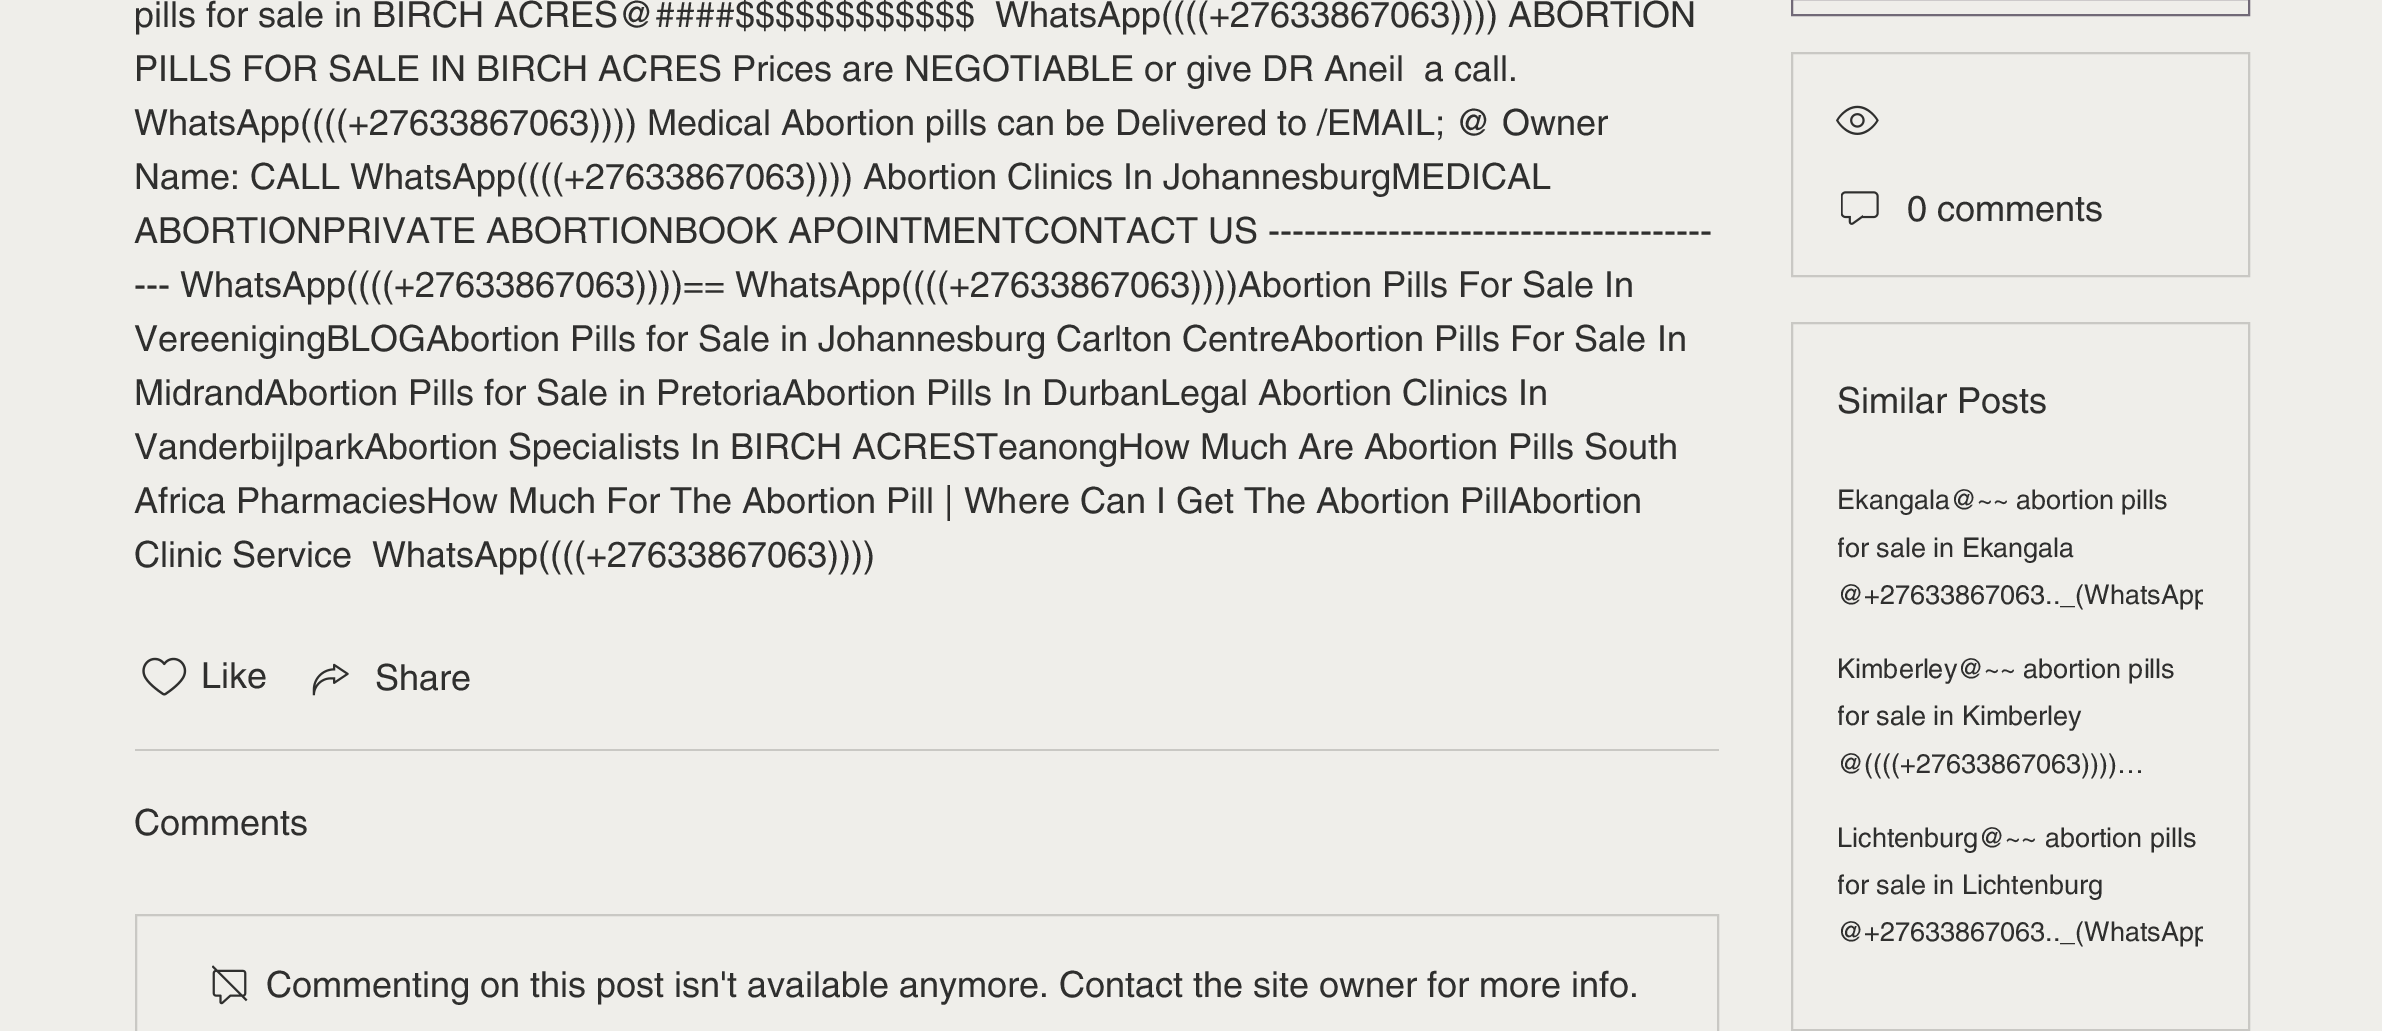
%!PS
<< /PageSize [2382 1031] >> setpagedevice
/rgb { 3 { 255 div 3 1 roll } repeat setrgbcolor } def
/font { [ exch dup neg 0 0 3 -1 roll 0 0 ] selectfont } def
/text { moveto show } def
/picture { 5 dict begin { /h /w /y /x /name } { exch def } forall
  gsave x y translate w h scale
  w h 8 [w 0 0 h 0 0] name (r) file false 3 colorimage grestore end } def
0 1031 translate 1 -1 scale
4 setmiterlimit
239 238 234 rgb
0 0 2382 1031 rectfill
(img_01.rgb) 142 657 45 39 picture
(img_02.rgb) 312 663 37 33 picture
201 200 196 rgb
135 749 1584 2 rectfill
2 setlinewidth
136 915 1582 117 rectstroke
(img_03.rgb) 212 965 36 40 picture
113 105 119 rgb
1792 -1 457 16 rectstroke
201 200 196 rgb
1792 53 457 223 rectstroke
(img_04.rgb) 1836 105 43 30 picture
(img_05.rgb) 1841 191 38 34 picture
1792 323 457 707 rectstroke
/helvetica-Regular 36 font
47 47 46 rgb
(pills for sale in BIRCH ACRES@####$$$$$$$$$$$$  WhatsApp\(\(\(\(+27633867063\)\)\)\) ABORTION) 134 27 text
(PILLS FOR SALE IN BIRCH ACRES Prices are NEGOTIABLE or give DR Aneil  a call.) 134 81 text
(WhatsApp\(\(\(\(+27633867063\)\)\)\) Medical Abortion pills can be Delivered to /EMAIL; @ Owner) 134 135 text
(Name: CALL WhatsApp\(\(\(\(+27633867063\)\)\)\) Abortion Clinics In JohannesburgMEDICAL) 134 189 text
(ABORTIONPRIVATE ABORTIONBOOK APOINTMENTCONTACT US -------------------------------------) 134 243 text
(--- WhatsApp\(\(\(\(+27633867063\)\)\)\)== WhatsApp\(\(\(\(+27633867063\)\)\)\)Abortion Pills For Sale In) 134 297 text
(VereenigingBLOGAbortion Pills for Sale in Johannesburg Carlton CentreAbortion Pills For Sale In) 134 351 text
(MidrandAbortion Pills for Sale in PretoriaAbortion Pills In DurbanLegal Abortion Clinics In) 134 405 text
(VanderbijlparkAbortion Specialists In BIRCH ACRESTeanongHow Much Are Abortion Pills South) 134 459 text
(Africa PharmaciesHow Much For The Abortion Pill | Where Can I Get The Abortion PillAbortion) 134 513 text
(Clinic Service  WhatsApp\(\(\(\(+27633867063\)\)\)\)) 134 567 text
(Like) 201 688 text
(Share) 375 690 text
(Comments) 134 835 text
(Commenting on this post isn't available anymore. Contact the site owner for more info.) 266 997 text
(0 comments) 1907 221 text
(Similar Posts) 1837 413 text
/helvetica-Regular 27 font
(Ekangala@~~ abortion pills) 1837 509 text
gsave
1838 477 365 142 rectclip
(for sale in Ekangala) 1837 557 text
(@+27633867063.._\(WhatsApp) 1837 604 text
grestore
(Kimberley@~~ abortion pills) 1837 678 text
gsave
1838 646 365 142 rectclip
(for sale in Kimberley) 1837 725 text
grestore
(@\(\(\(\(+27633867063\)\)\)\)…) 1837 773 text
(Lichtenburg@~~ abortion pills) 1837 847 text
gsave
1838 815 365 141 rectclip
(for sale in Lichtenburg) 1837 894 text
(@+27633867063.._\(WhatsApp) 1837 941 text
grestore
showpage
